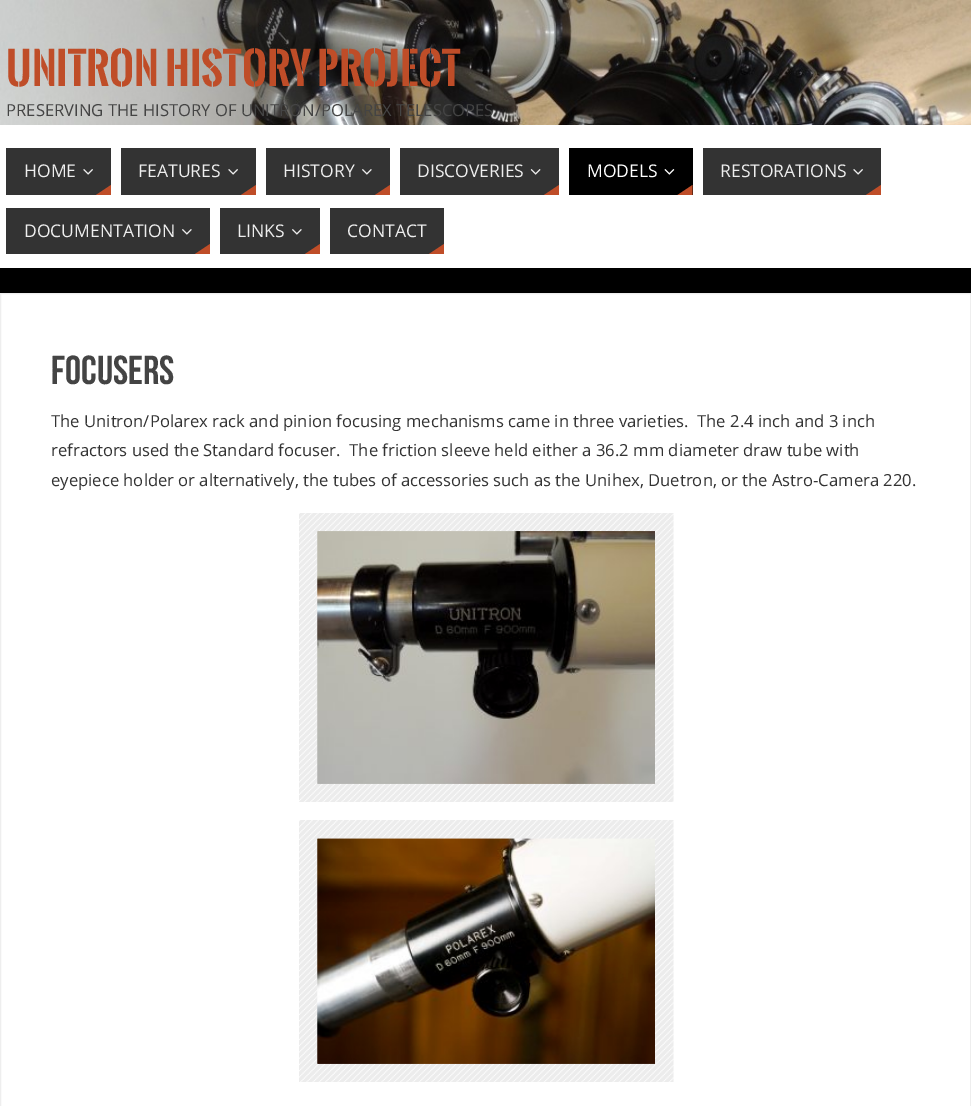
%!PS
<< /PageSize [971 1106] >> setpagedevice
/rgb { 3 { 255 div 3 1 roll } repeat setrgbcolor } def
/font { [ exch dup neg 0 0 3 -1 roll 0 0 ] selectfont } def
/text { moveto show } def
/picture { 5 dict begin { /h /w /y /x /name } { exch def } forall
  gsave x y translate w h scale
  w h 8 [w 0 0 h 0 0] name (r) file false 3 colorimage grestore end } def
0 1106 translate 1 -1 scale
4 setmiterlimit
0 0 0 rgb
0 0 971 1106 rectfill
255 255 255 rgb
0 125 971 143 rectfill
(img_01.rgb) 0 0 971 125 picture
51 51 51 rgb
6 148 105 47 rectfill
(img_02.rgb) 83 169 10 6 picture
191 77 40 rgb
111 195 moveto -15 0 rlineto 15 -10 rlineto closepath fill
51 51 51 rgb
121 148 135 47 rectfill
(img_02.rgb) 228 169 10 6 picture
191 77 40 rgb
256 195 moveto -15 0 rlineto 15 -10 rlineto closepath fill
51 51 51 rgb
266 148 124 47 rectfill
(img_03.rgb) 362 169 10 6 picture
191 77 40 rgb
390 195 moveto -15 0 rlineto 15 -10 rlineto closepath fill
51 51 51 rgb
400 148 159 47 rectfill
(img_04.rgb) 530 169 11 6 picture
191 77 40 rgb
559 195 moveto -15 0 rlineto 15 -10 rlineto closepath fill
0 0 0 rgb
569 148 124 47 rectfill
(img_05.rgb) 664 169 11 6 picture
191 77 40 rgb
692.5 195 moveto -15 0 rlineto 15 -10 rlineto closepath fill
51 51 51 rgb
703 148 178 47 rectfill
(img_02.rgb) 853 169 10 6 picture
191 77 40 rgb
881 195 moveto -15 0 rlineto 15 -10 rlineto closepath fill
51 51 51 rgb
6 208 204 46 rectfill
(img_03.rgb) 182 229 10 6 picture
191 77 40 rgb
210 254 moveto -15 0 rlineto 15 -10 rlineto closepath fill
51 51 51 rgb
220 208 100 46 rectfill
(img_03.rgb) 292 229 10 6 picture
191 77 40 rgb
320 254 moveto -15 0 rlineto 15 -10 rlineto closepath fill
51 51 51 rgb
330 208 114 46 rectfill
191 77 40 rgb
444 254 moveto -15 0 rlineto 15 -10 rlineto closepath fill
255 255 255 rgb
0.5 293.5 moveto 970 0 rlineto 0 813 rlineto -970 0 rlineto closepath gsave fill grestore
238 238 238 rgb
stroke
(img_06.rgb) 299 513 375 289 picture
(img_07.rgb) 317 531 338 253 picture
(img_08.rgb) 299 820 375 262 picture
(img_09.rgb) 317 838 338 226 picture
/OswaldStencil-Bold 42.75 font
191 77 40 rgb
(UNITRON HISTORY PROJECT) 6 86 text
/OpenSans-Regular 16.62 font
68 68 68 rgb
(PRESERVING THE HISTORY OF UNITRON/POLAREX TELESCOPES) 6 116 text
/OpenSans-Regular 17.5 font
238 238 238 rgb
(HOME) 24 177 text
(FEATURES) 138 177 text
(HISTORY) 283 177 text
(DISCOVERIES) 417 177 text
255 255 255 rgb
(MODELS) 587 177 text
238 238 238 rgb
(RESTORATIONS) 720 177 text
(DOCUMENTATION) 24 237 text
(LINKS) 237 237 text
(CONTACT) 347 237 text
/BebasNeue-Regular 40.5 font
68 68 68 rgb
(Focusers) 51 384 text
/OpenSans-Regular 16.62 font
51 51 51 rgb
(The Unitron/Polarex rack and pinion focusing mechanisms came in three varieties.  The 2.4 inch and 3 inch) 51 427 text
(refractors used the Standard focuser.  The friction sleeve held either a 36.2 mm diameter draw tube with) 51 456 text
(eyepiece holder or alternatively, the tubes of accessories such as the Unihex, Duetron, or the Astro-Camera 220.) 51 486 text
showpage
